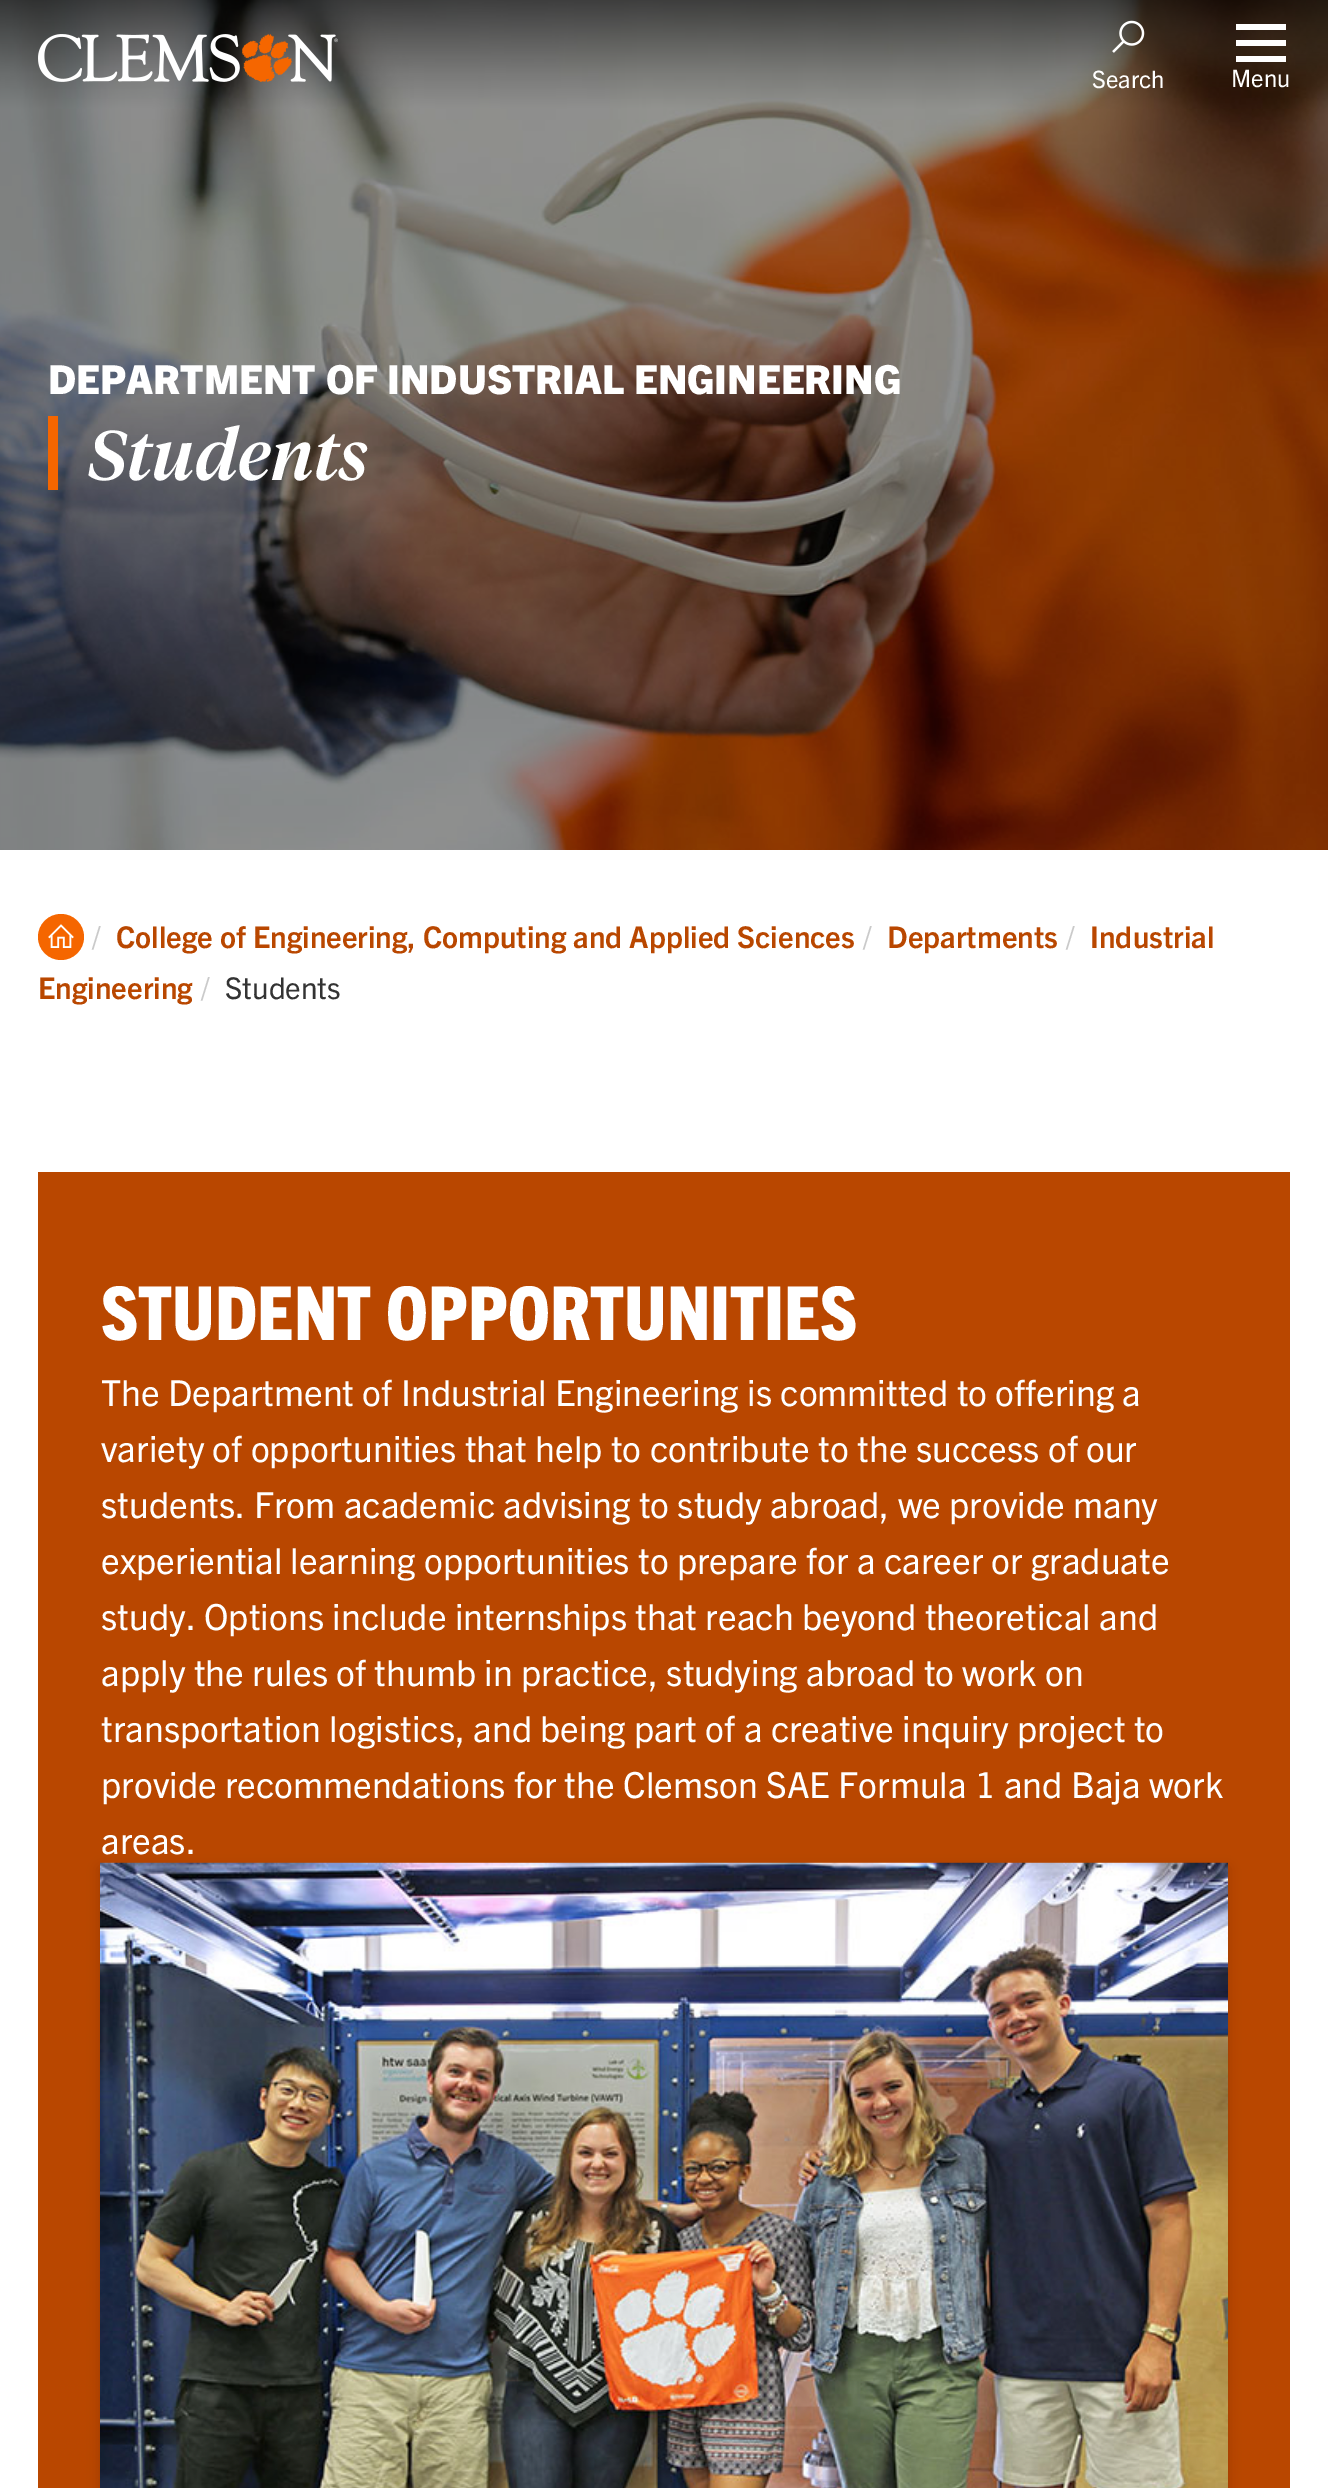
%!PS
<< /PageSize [1328 2488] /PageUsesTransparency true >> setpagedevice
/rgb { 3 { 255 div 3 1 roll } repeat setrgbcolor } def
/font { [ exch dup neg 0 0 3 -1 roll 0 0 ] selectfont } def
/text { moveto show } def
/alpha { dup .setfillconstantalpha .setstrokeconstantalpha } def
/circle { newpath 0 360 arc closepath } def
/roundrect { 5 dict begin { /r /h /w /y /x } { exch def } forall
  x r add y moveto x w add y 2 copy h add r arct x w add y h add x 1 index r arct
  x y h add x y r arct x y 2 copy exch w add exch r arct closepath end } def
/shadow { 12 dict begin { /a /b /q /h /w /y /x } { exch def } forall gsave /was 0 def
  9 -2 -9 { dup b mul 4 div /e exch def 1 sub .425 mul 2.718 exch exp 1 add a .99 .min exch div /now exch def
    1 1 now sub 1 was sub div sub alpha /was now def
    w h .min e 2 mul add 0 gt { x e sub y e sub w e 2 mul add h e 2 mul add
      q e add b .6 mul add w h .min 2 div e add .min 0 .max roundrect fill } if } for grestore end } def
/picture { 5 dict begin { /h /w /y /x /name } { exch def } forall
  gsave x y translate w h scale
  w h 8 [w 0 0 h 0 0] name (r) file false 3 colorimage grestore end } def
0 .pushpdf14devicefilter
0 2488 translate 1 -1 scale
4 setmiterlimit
255 255 255 rgb
0 0 1328 2488 rectfill
(img_03.rgb) 0 0 1328 850 picture
(img_01.rgb) 38 34 300 48 picture
(img_02.rgb) 1112 20 33 33 picture
1236 24 50 6 rectfill
1236 40 50 6 rectfill
1236 56 50 6 rectfill
245 102 0 rgb
48 416 10 74 rectfill
61 937 23 circle fill
(img_04.rgb) 48 924 26 24 picture
185 71 0 rgb
38 1172 1252 1316 rectfill
0 0 0 rgb
100 1868 1128 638 0 6 0.16 shadow
(img_05.rgb) 100 1862 1128 626 picture
/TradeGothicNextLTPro-Regular 24 font
255 255 255 rgb
(Search) 1092 88 text
(Menu) 1231 87 text
/TradeGothicNextLTPro-ExtraBold 40 font
(DEPARTMENT OF INDUSTRIAL ENGINEERING) 48 394 text
/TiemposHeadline-MediumItalic 70 font
88 480 moveto 0.25 0 (Students) ashow
/TradeGothicNextLTPro-Regular 30 font
202 202 202 rgb
(/) 92 948 text
/TradeGothicNextLTPro-Bold 30 font
185 71 0 rgb
(College of Engineering, Computing and Applied Sciences) 116 948 text
/TradeGothicNextLTPro-Regular 30 font
202 202 202 rgb
(/) 863 948 text
/TradeGothicNextLTPro-Bold 30 font
185 71 0 rgb
(Departments) 887 948 text
/TradeGothicNextLTPro-Regular 30 font
202 202 202 rgb
(/) 1066 948 text
/TradeGothicNextLTPro-Bold 30 font
185 71 0 rgb
(Industrial) 1090 948 text
(Engineering) 38 999 text
/TradeGothicNextLTPro-Regular 30 font
202 202 202 rgb
(/) 201 999 text
51 51 51 rgb
(Students) 225 999 text
/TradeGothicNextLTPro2-ExtraBold 74.5 font
255 255 255 rgb
(STUDENT OPPORTUNITIES) 101 1340 text
/TradeGothicNextLTPro-Regular 36 font
(The Department of Industrial Engineering is committed to offering a) 101 1406 text
(variety of opportunities that help to contribute to the success of our) 101 1462 text
(students. From academic advising to study abroad, we provide many) 101 1518 text
(experiential learning opportunities to prepare for a career or graduate) 101 1574 text
(study. Options include internships that reach beyond theoretical and) 101 1630 text
(apply the rules of thumb in practice, studying abroad to work on) 101 1686 text
(transportation logistics, and being part of a creative inquiry project to) 101 1742 text
(provide recommendations for the Clemson SAE Formula 1 and Baja work) 101 1798 text
(areas.) 101 1854 text
.poppdf14devicefilter showpage
